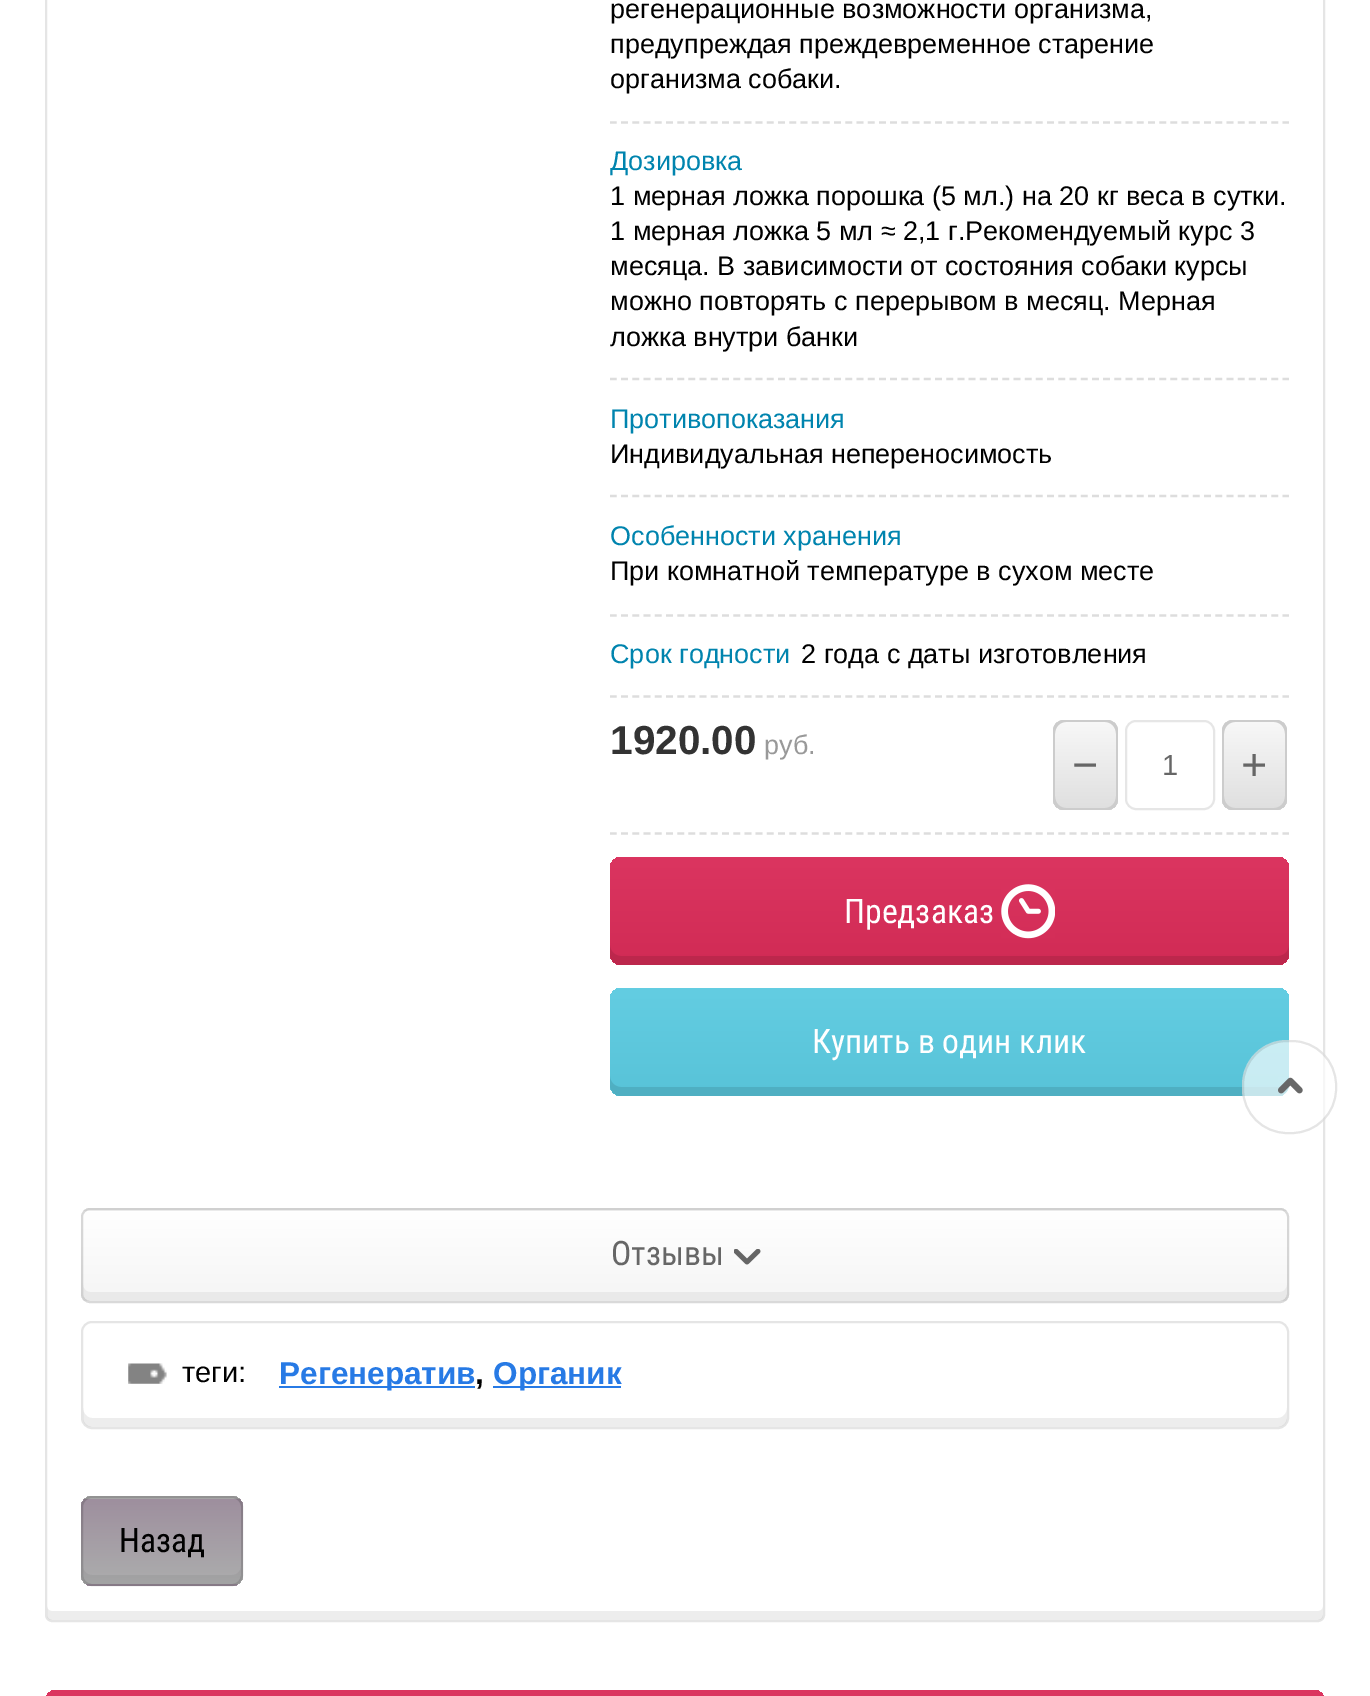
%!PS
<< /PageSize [1370 1696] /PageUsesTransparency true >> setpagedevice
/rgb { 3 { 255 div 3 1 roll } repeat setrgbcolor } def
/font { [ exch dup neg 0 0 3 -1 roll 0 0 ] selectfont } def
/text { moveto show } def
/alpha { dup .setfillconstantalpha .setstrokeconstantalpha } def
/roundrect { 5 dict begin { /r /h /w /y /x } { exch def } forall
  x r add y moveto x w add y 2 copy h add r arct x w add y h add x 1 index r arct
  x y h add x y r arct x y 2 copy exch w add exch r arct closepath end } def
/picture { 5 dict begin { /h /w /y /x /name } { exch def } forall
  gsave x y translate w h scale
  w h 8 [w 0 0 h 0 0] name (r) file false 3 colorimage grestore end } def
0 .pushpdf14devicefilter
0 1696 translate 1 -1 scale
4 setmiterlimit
255 255 255 rgb
0 0 1370 1696 rectfill
237 237 237 rgb
47 1606 moveto 0 9 rlineto 0 3 2 5 5 5 rcurveto 1266 0 rlineto 3 0 5 -2 5 -5 rcurveto 0 -9 rlineto 0 3 -2 5 -5 5 rcurveto -1266 0 rlineto -3 0 -5 -2 -5 -5 rcurveto closepath fill
0.1 alpha
0 0 0 rgb
2 setlinewidth
46 -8 1278 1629 6 roundrect stroke
1 alpha
221 221 221 rgb
2.2 setlinewidth
[6.75 4.46] 0 setdash
610 122.5 moveto 679 0 rlineto stroke
610 379 moveto 679 0 rlineto stroke
610 496 moveto 679 0 rlineto stroke
610 615.5 moveto 679 0 rlineto stroke
610 696.5 moveto 679 0 rlineto stroke
610 833.5 moveto 679 0 rlineto stroke
gsave 1053 720 65 90 11 roundrect clip newpath
<< /ShadingType 2 /ColorSpace /DeviceRGB /Coords [1086 720 1086 810] /Extend [true true] /Function << /FunctionType 2 /Domain [0 1] /C0 [0.973 0.973 0.973] /C1 [0.875 0.875 0.875] /N 1 >> >> shfill grestore
204 204 204 rgb
1057 722 moveto -2 2 -4 5 -4 9 rcurveto 0 68 rlineto 0 6 5 11 11 11 rcurveto 43 0 rlineto 4 0 7 -2 9 -5 rcurveto -2 2 -4 3 -7 3 rcurveto -43 0 rlineto -6 0 -11 -5 -11 -12 rcurveto 0 -67 rlineto 0 -3 1 -5 2 -7 rcurveto closepath fill
1062 722 moveto 43 0 rlineto 6 0 11 5 11 12 rcurveto 0 67 rlineto 0 3 -1 5 -2 7 rcurveto 2 -2 4 -5 4 -9 rcurveto 0 -68 rlineto 0 -6 -5 -11 -11 -11 rcurveto -43 0 rlineto -4 0 -7 2 -9 5 rcurveto 2 -2 4 -3 7 -3 rcurveto closepath fill
1055 805 moveto 2 3 5 5 9 5 rcurveto 43 0 rlineto 6 0 11 -5 11 -11 rcurveto 0 -68 rlineto 0 -4 -2 -7 -4 -9 rcurveto 1 2 2 4 2 7 rcurveto 0 67 rlineto 0 7 -5 12 -11 12 rcurveto -43 0 rlineto -3 0 -5 -1 -7 -3 rcurveto closepath fill
1066 722 moveto 43 0 rlineto 3 0 5 1 7 3 rcurveto -2 -3 -5 -5 -9 -5 rcurveto -43 0 rlineto -6 0 -11 5 -11 11 rcurveto 0 68 rlineto 0 4 2 7 4 9 rcurveto -1 -2 -2 -4 -2 -7 rcurveto 0 -67 rlineto 0 -7 5 -12 11 -12 rcurveto closepath fill
230 230 230 rgb
2 setlinewidth
[] 0 setdash
1126 721 88 88 10 roundrect stroke
gsave 1222 720 65 90 11 roundrect clip newpath
<< /ShadingType 2 /ColorSpace /DeviceRGB /Coords [1254 720 1254 810] /Extend [true true] /Function << /FunctionType 2 /Domain [0 1] /C0 [0.973 0.973 0.973] /C1 [0.875 0.875 0.875] /N 1 >> >> shfill grestore
204 204 204 rgb
1226 722 moveto -2 2 -4 5 -4 9 rcurveto 0 68 rlineto 0 6 5 11 11 11 rcurveto 43 0 rlineto 4 0 7 -2 9 -5 rcurveto -2 2 -4 3 -7 3 rcurveto -43 0 rlineto -6 0 -11 -5 -11 -12 rcurveto 0 -67 rlineto 0 -3 1 -5 2 -7 rcurveto closepath fill
1231 722 moveto 43 0 rlineto 6 0 11 5 11 12 rcurveto 0 67 rlineto 0 3 -1 5 -2 7 rcurveto 2 -2 4 -5 4 -9 rcurveto 0 -68 rlineto 0 -6 -5 -11 -11 -11 rcurveto -43 0 rlineto -4 0 -7 2 -9 5 rcurveto 2 -2 4 -3 7 -3 rcurveto closepath fill
1224 805 moveto 2 3 5 5 9 5 rcurveto 43 0 rlineto 6 0 11 -5 11 -11 rcurveto 0 -68 rlineto 0 -4 -2 -7 -4 -9 rcurveto 1 2 2 4 2 7 rcurveto 0 67 rlineto 0 7 -5 12 -11 12 rcurveto -43 0 rlineto -3 0 -5 -1 -7 -3 rcurveto closepath fill
1235 722 moveto 43 0 rlineto 3 0 5 1 7 3 rcurveto -2 -3 -5 -5 -9 -5 rcurveto -43 0 rlineto -6 0 -11 5 -11 11 rcurveto 0 68 rlineto 0 4 2 7 4 9 rcurveto -1 -2 -2 -4 -2 -7 rcurveto 0 -67 rlineto 0 -7 5 -12 11 -12 rcurveto closepath fill
gsave 610 857 679 108 11 roundrect clip newpath
<< /ShadingType 2 /ColorSpace /DeviceRGB /Coords [950 965 950 857] /Extend [true true] /Function << /FunctionType 2 /Domain [0 1] /C0 [0.82 0.169 0.333] /C1 [0.859 0.208 0.376] /N 1 >> >> shfill grestore
0.1 alpha
0 0 0 rgb
610 945 moveto 0 9 rlineto 0 6 5 11 11 11 rcurveto 657 0 rlineto 6 0 11 -5 11 -11 rcurveto 0 -9 rlineto 0 6 -5 11 -11 11 rcurveto -657 0 rlineto -6 0 -11 -5 -11 -11 rcurveto closepath fill
1 alpha
(img_01.rgb) 1001 884 54 55 picture
gsave 610 988 679 108 11 roundrect clip newpath
<< /ShadingType 2 /ColorSpace /DeviceRGB /Coords [950 1096 950 988] /Extend [true true] /Function << /FunctionType 2 /Domain [0 1] /C0 [0.345 0.765 0.847] /C1 [0.388 0.804 0.886] /N 1 >> >> shfill grestore
0.1 alpha
610 1076 moveto 0 9 rlineto 0 6 5 11 11 11 rcurveto 657 0 rlineto 6 0 11 -5 11 -11 rcurveto 0 -9 rlineto 0 6 -5 11 -11 11 rcurveto -657 0 rlineto -6 0 -11 -5 -11 -11 rcurveto closepath fill
gsave
81 1208 1208 95 9 roundrect clip newpath
1 alpha
gsave 81 1208 moveto 1208 0 rlineto 0 3 rlineto -1208 0 rlineto closepath clip newpath
<< /ShadingType 2 /ColorSpace /DeviceRGB /Coords [685 1211 685 1121] /Extend [true true] /Function << /FunctionType 2 /Domain [0 1] /C0 [0.961 0.961 0.961] /C1 [1 1 1] /N 1 >> >> shfill grestore
gsave 81 1211 moveto 1208 0 rlineto 0 90 rlineto -1208 0 rlineto closepath clip newpath
<< /ShadingType 2 /ColorSpace /DeviceRGB /Coords [685 1301 685 1211] /Extend [true true] /Function << /FunctionType 2 /Domain [0 1] /C0 [0.961 0.961 0.961] /C1 [1 1 1] /N 1 >> >> shfill grestore
grestore
1 alpha
233 233 233 rgb
83 1285 moveto 0 9 rlineto 0 4 3 7 7 7 rcurveto 1190 0 rlineto 4 0 7 -3 7 -7 rcurveto 0 -9 rlineto 0 3 -3 7 -7 7 rcurveto -1190 0 rlineto -4 0 -7 -4 -7 -7 rcurveto closepath fill
0.15 alpha
0 0 0 rgb
82 1209 1206 93 8 roundrect stroke
1 alpha
(img_02.rgb) 734 1249 27 16 picture
237 237 237 rgb
83 1408 moveto 0 10 rlineto 0 5 4 9 9 9 rcurveto 1186 0 rlineto 5 0 9 -4 9 -9 rcurveto 0 -10 rlineto 0 5 -4 10 -9 10 rcurveto -1186 0 rlineto -5 0 -9 -5 -9 -10 rcurveto closepath fill
0.1 alpha
0 0 0 rgb
82 1322 1206 106 10 roundrect stroke
1 alpha
(img_03.rgb) 128 1363 39 21 picture
39 122 229 rgb
279 1386 196 2 rectfill
493 1386 128 2 rectfill
gsave
81 1496 162 90 11 roundrect clip newpath
gsave 81 1496 moveto 162 0 rlineto 0 3 rlineto -162 0 rlineto closepath clip newpath
<< /ShadingType 2 /ColorSpace /DeviceRGB /Coords [162 1499 162 1413] /Extend [true true] /Function << /FunctionType 2 /Domain [0 1] /C0 [0.675 0.678 0.678] /C1 [0.62 0.561 0.62] /N 1 >> >> shfill grestore
gsave 81 1499 moveto 162 0 rlineto 0 85 rlineto -162 0 rlineto closepath clip newpath
<< /ShadingType 2 /ColorSpace /DeviceRGB /Coords [162 1584 162 1499] /Extend [true true] /Function << /FunctionType 2 /Domain [0 1] /C0 [0.675 0.678 0.678] /C1 [0.62 0.561 0.62] /N 1 >> >> shfill grestore
gsave 81 1584 moveto 162 0 rlineto 0 2 rlineto -162 0 rlineto closepath clip newpath
<< /ShadingType 2 /ColorSpace /DeviceRGB /Coords [162 1670 162 1584] /Extend [true true] /Function << /FunctionType 2 /Domain [0 1] /C0 [0.675 0.678 0.678] /C1 [0.62 0.561 0.62] /N 1 >> >> shfill grestore
grestore
0.05 alpha
0 0 0 rgb
83 1566 moveto 0 9 rlineto 0 5 4 9 9 9 rcurveto 140 0 rlineto 5 0 9 -4 9 -9 rcurveto 0 -9 rlineto 0 5 -4 9 -9 9 rcurveto -140 0 rlineto -5 0 -9 -4 -9 -9 rcurveto closepath fill
0.15 alpha
82 1497 160 88 10 roundrect stroke
1 alpha
230 230 230 rgb
46 1691 1278 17 10 roundrect stroke
gsave 56 1690 moveto 1258 0 rlineto 6 0 11 5 11 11 rcurveto 0 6 rlineto -1280 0 rlineto 0 -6 rlineto 0 -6 5 -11 11 -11 rcurveto closepath clip newpath
<< /ShadingType 2 /ColorSpace /DeviceRGB /Coords [685 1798 685 1690] /Extend [true true] /Function << /FunctionType 2 /Domain [0 1] /C0 [0.82 0.169 0.333] /C1 [0.859 0.208 0.376] /N 1 >> >> shfill grestore
0.67 alpha
255 255 255 rgb
1242 1040 95 94 45 roundrect fill
0.1 alpha
0 0 0 rgb
1243 1041 93 92 44 roundrect stroke
1 alpha
(img_04.rgb) 1278 1077 25 17 picture
/LiberationSans-Regular 27 font
(регенерационные возможности организма,) 610 18 text
(предупреждая преждевременное старение) 610 53 text
(организма собаки.) 610 88 text
0 132 174 rgb
(Дозировка) 610 170 text
0 0 0 rgb
(1 мерная ложка порошка \(5 мл.\) на 20 кг веса в сутки.) 610 205 text
(1 мерная ложка 5 мл ≈ 2,1 г.Рекомендуемый курс 3) 610 240 text
(месяца. В зависимости от состояния собаки курсы) 610 275 text
(можно повторять с перерывом в месяц. Мерная) 610 310 text
(ложка внутри банки) 610 346 text
0 132 174 rgb
(Противопоказания) 610 428 text
0 0 0 rgb
(Индивидуальная непереносимость) 610 463 text
0 132 174 rgb
(Особенности хранения) 610 545 text
0 0 0 rgb
(При комнатной температуре в сухом месте) 610 580 text
0 132 174 rgb
(Срок годности) 610 663 text
0 0 0 rgb
(2 года с даты изготовления) 801 663 text
/LiberationSans-Bold 40.5 font
51 51 51 rgb
(1920.00) 610 754 text
/LiberationSans-Regular 27 font
153 153 153 rgb
(руб.) 764 754 text
/LiberationSans-Regular 45 font
102 102 102 rgb
(−) 1072 780 text
/LiberationSans-Regular 29 font
(1) 1162 775 text
/LiberationSans-Regular 45 font
(+) 1241 780 text
/RobotoCondensed-Regular 33.75 font
255 255 255 rgb
(Предзаказ) 844 923 text
(Купить в один клик) 812 1053 text
102 102 102 rgb
(Отзывы) 611 1265 text
/LiberationSans-Regular 29 font
0 0 0 rgb
(теги:) 182 1382 text
/LiberationSans-Bold 31.5 font
39 122 229 rgb
(Регенератив) 279 1384 text
0 0 0 rgb
(,) 475 1384 text
39 122 229 rgb
(Органик) 493 1384 text
/RobotoCondensed-Regular 33.75 font
0 0 0 rgb
(Назад) 119 1552 text
.poppdf14devicefilter showpage
